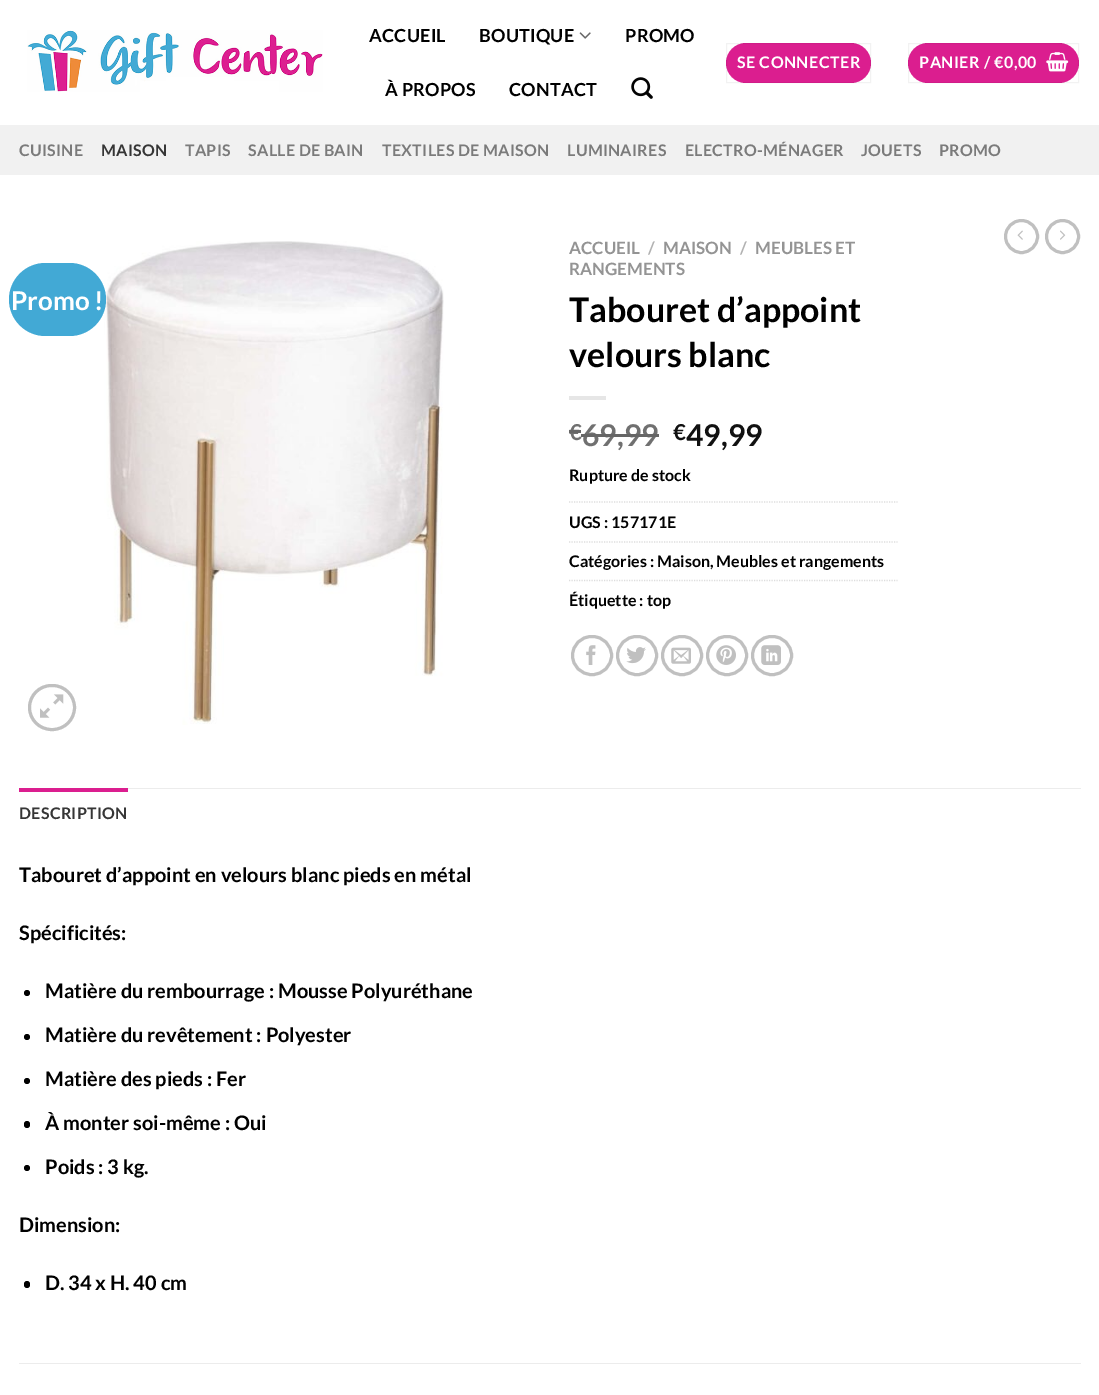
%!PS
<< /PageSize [1099 1395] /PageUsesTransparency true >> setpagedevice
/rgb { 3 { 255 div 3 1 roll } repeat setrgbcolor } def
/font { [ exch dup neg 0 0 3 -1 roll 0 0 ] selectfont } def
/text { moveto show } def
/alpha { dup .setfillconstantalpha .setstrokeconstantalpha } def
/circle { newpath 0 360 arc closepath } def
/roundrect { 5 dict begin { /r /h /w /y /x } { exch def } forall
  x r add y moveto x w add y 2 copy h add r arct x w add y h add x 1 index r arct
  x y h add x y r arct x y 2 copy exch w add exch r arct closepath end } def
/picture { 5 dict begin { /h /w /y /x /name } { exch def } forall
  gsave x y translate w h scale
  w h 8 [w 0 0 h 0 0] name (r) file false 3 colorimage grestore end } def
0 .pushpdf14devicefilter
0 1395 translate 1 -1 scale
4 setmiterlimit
255 255 255 rgb
0 0 1099 1395 rectfill
(img_01.rgb) 27 30 296 62 picture
(img_02.rgb) 579 32 12 7 picture
(img_03.rgb) 631 77 22 22 picture
219 30 143 rgb
726 43 145 40 20 roundrect fill
0.05 alpha
0 0 0 rgb
726.5 43.5 144 39 rectstroke
1 alpha
219 30 143 rgb
908 43 171 40 20 roundrect fill
0.05 alpha
0 0 0 rgb
908.5 43.5 170 39 rectstroke
1 alpha
(img_04.rgb) 1046 52 23 20 picture
241 241 241 rgb
0 125 1099 50 rectfill
192 192 192 rgb
3 setlinewidth
1021.5 236.5 16 circle stroke
(img_05.rgb) 1017 230 6 10 picture
1062.5 236.5 16 circle stroke
(img_06.rgb) 1060 230 6 10 picture
(img_07.rgb) 104 241 340 484 picture
66 169 213 rgb
9 263 97 73 36.5 roundrect fill
192 192 192 rgb
29.5 685.5 45 44 22 roundrect stroke
(img_08.rgb) 40 694 24 24 picture
230 230 230 rgb
569 396 37 4 rectfill
221 221 221 rgb
1.2 setlinewidth
[1.25 1.25] 0 setdash
569 502 moveto 328.5 0 rlineto stroke
569 542 moveto 328.5 0 rlineto stroke
569 580.5 moveto 328.5 0 rlineto stroke
192 192 192 rgb
3 setlinewidth
[] 0 setdash
572.5 636.5 39 38 19 roundrect stroke
(img_09.rgb) 586 645 10 20 picture
617.5 636.5 39 38 19 roundrect stroke
(img_10.rgb) 626 647 20 17 picture
662.5 636.5 39 38 19 roundrect stroke
(img_11.rgb) 671 647 20 17 picture
707.5 636.5 39 38 19 roundrect stroke
(img_12.rgb) 716 645 20 20 picture
752.5 636.5 39 38 19 roundrect stroke
(img_13.rgb) 761 645 20 20 picture
236 236 236 rgb
128 788 953 1 rectfill
219 30 143 rgb
19 788 109 4 rectfill
0 0 0 rgb
27 993 3 circle fill
27 1037 3 circle fill
27 1081 3 circle fill
24 1121 6 7 3 roundrect fill
27 1168 3 circle fill
24 1281 6 7 3 roundrect fill
236 236 236 rgb
19 1363 1062 1 rectfill
/Lato-Bold 18 font
0 0 0 rgb
369 42 moveto 0.25 0 (ACCUEIL) ashow
479 42 moveto 0.25 0 (BOUTIQUE) ashow
625 42 moveto 0.25 0 (PROMO) ashow
385 96 moveto 0.25 0 (À PROPOS) ashow
509 96 moveto 0.25 0 (CONTACT) ashow
/Lato-Bold 16 font
255 255 255 rgb
737 68 moveto 0.5 0 (SE CONNECTER) ashow
919 68 moveto 0.5 0 (PANIER / €0,00) ashow
123 123 123 rgb
19 156 moveto 0.3 0 (CUISINE) ashow
54 54 54 rgb
101 156 moveto 0.3 0 (MAISON) ashow
123 123 123 rgb
185 156 moveto 0.3 0 (TAPIS) ashow
248 156 moveto 0.3 0 (SALLE DE BAIN) ashow
382 156 moveto 0.3 0 (TEXTILES DE MAISON) ashow
567 156 moveto 0.3 0 (LUMINAIRES) ashow
685 156 moveto 0.3 0 (ELECTRO-MÉNAGER) ashow
861 156 moveto 0.3 0 (JOUETS) ashow
939 156 moveto 0.3 0 (PROMO) ashow
/Lato-Bold 26 font
255 255 255 rgb
(Promo !) 11 310 text
/Lato-Bold 17 font
148 148 148 rgb
(ACCUEIL) 569 254 text
178 178 178 rgb
(/) 648 254 text
148 148 148 rgb
(MAISON) 663 254 text
178 178 178 rgb
(/) 740 254 text
148 148 148 rgb
(MEUBLES ET) 755 254 text
(RANGEMENTS) 569 275 text
/Lato-Bold 34 font
0 0 0 rgb
(Tabouret d’appoint) 569 322 text
(velours blanc) 569 367 text
/Lato-Bold 22 font
112 112 112 rgb
(€) 569 440 text
102 102 102 rgb
569 430 12 3 rectfill
/Lato-Bold 30 font
112 112 112 rgb
(69,99) 582 446 text
102 102 102 rgb
581 434 78 3 rectfill
/Lato-Bold 22 font
17 17 17 rgb
(€) 673 440 text
/Lato-Bold 30 font
(49,99) 686 446 text
/Lato-Bold 16 font
0 0 0 rgb
(Rupture de stock) 569 481 text
(UGS : 157171E) 569 528 text
(Catégories : Maison, Meubles et rangements) 569 567 text
(Étiquette : top) 569 606 text
54 54 54 rgb
19 819 moveto 0.3 0 (DESCRIPTION) ashow
/Lato-Bold 20 font
0 0 0 rgb
(Tabouret d’appoint en velours blanc pieds en métal) 19 882 text
(Spécificités:) 19 940 text
(Matière du rembourrage : Mousse Polyuréthane) 45 998 text
(Matière du revêtement : Polyester) 45 1042 text
(Matière des pieds : Fer) 45 1086 text
(À monter soi-même : Oui) 45 1130 text
(Poids : 3 kg.) 45 1174 text
(Dimension:) 19 1232 text
(D. 34 x H. 40 cm) 45 1290 text
.poppdf14devicefilter showpage
